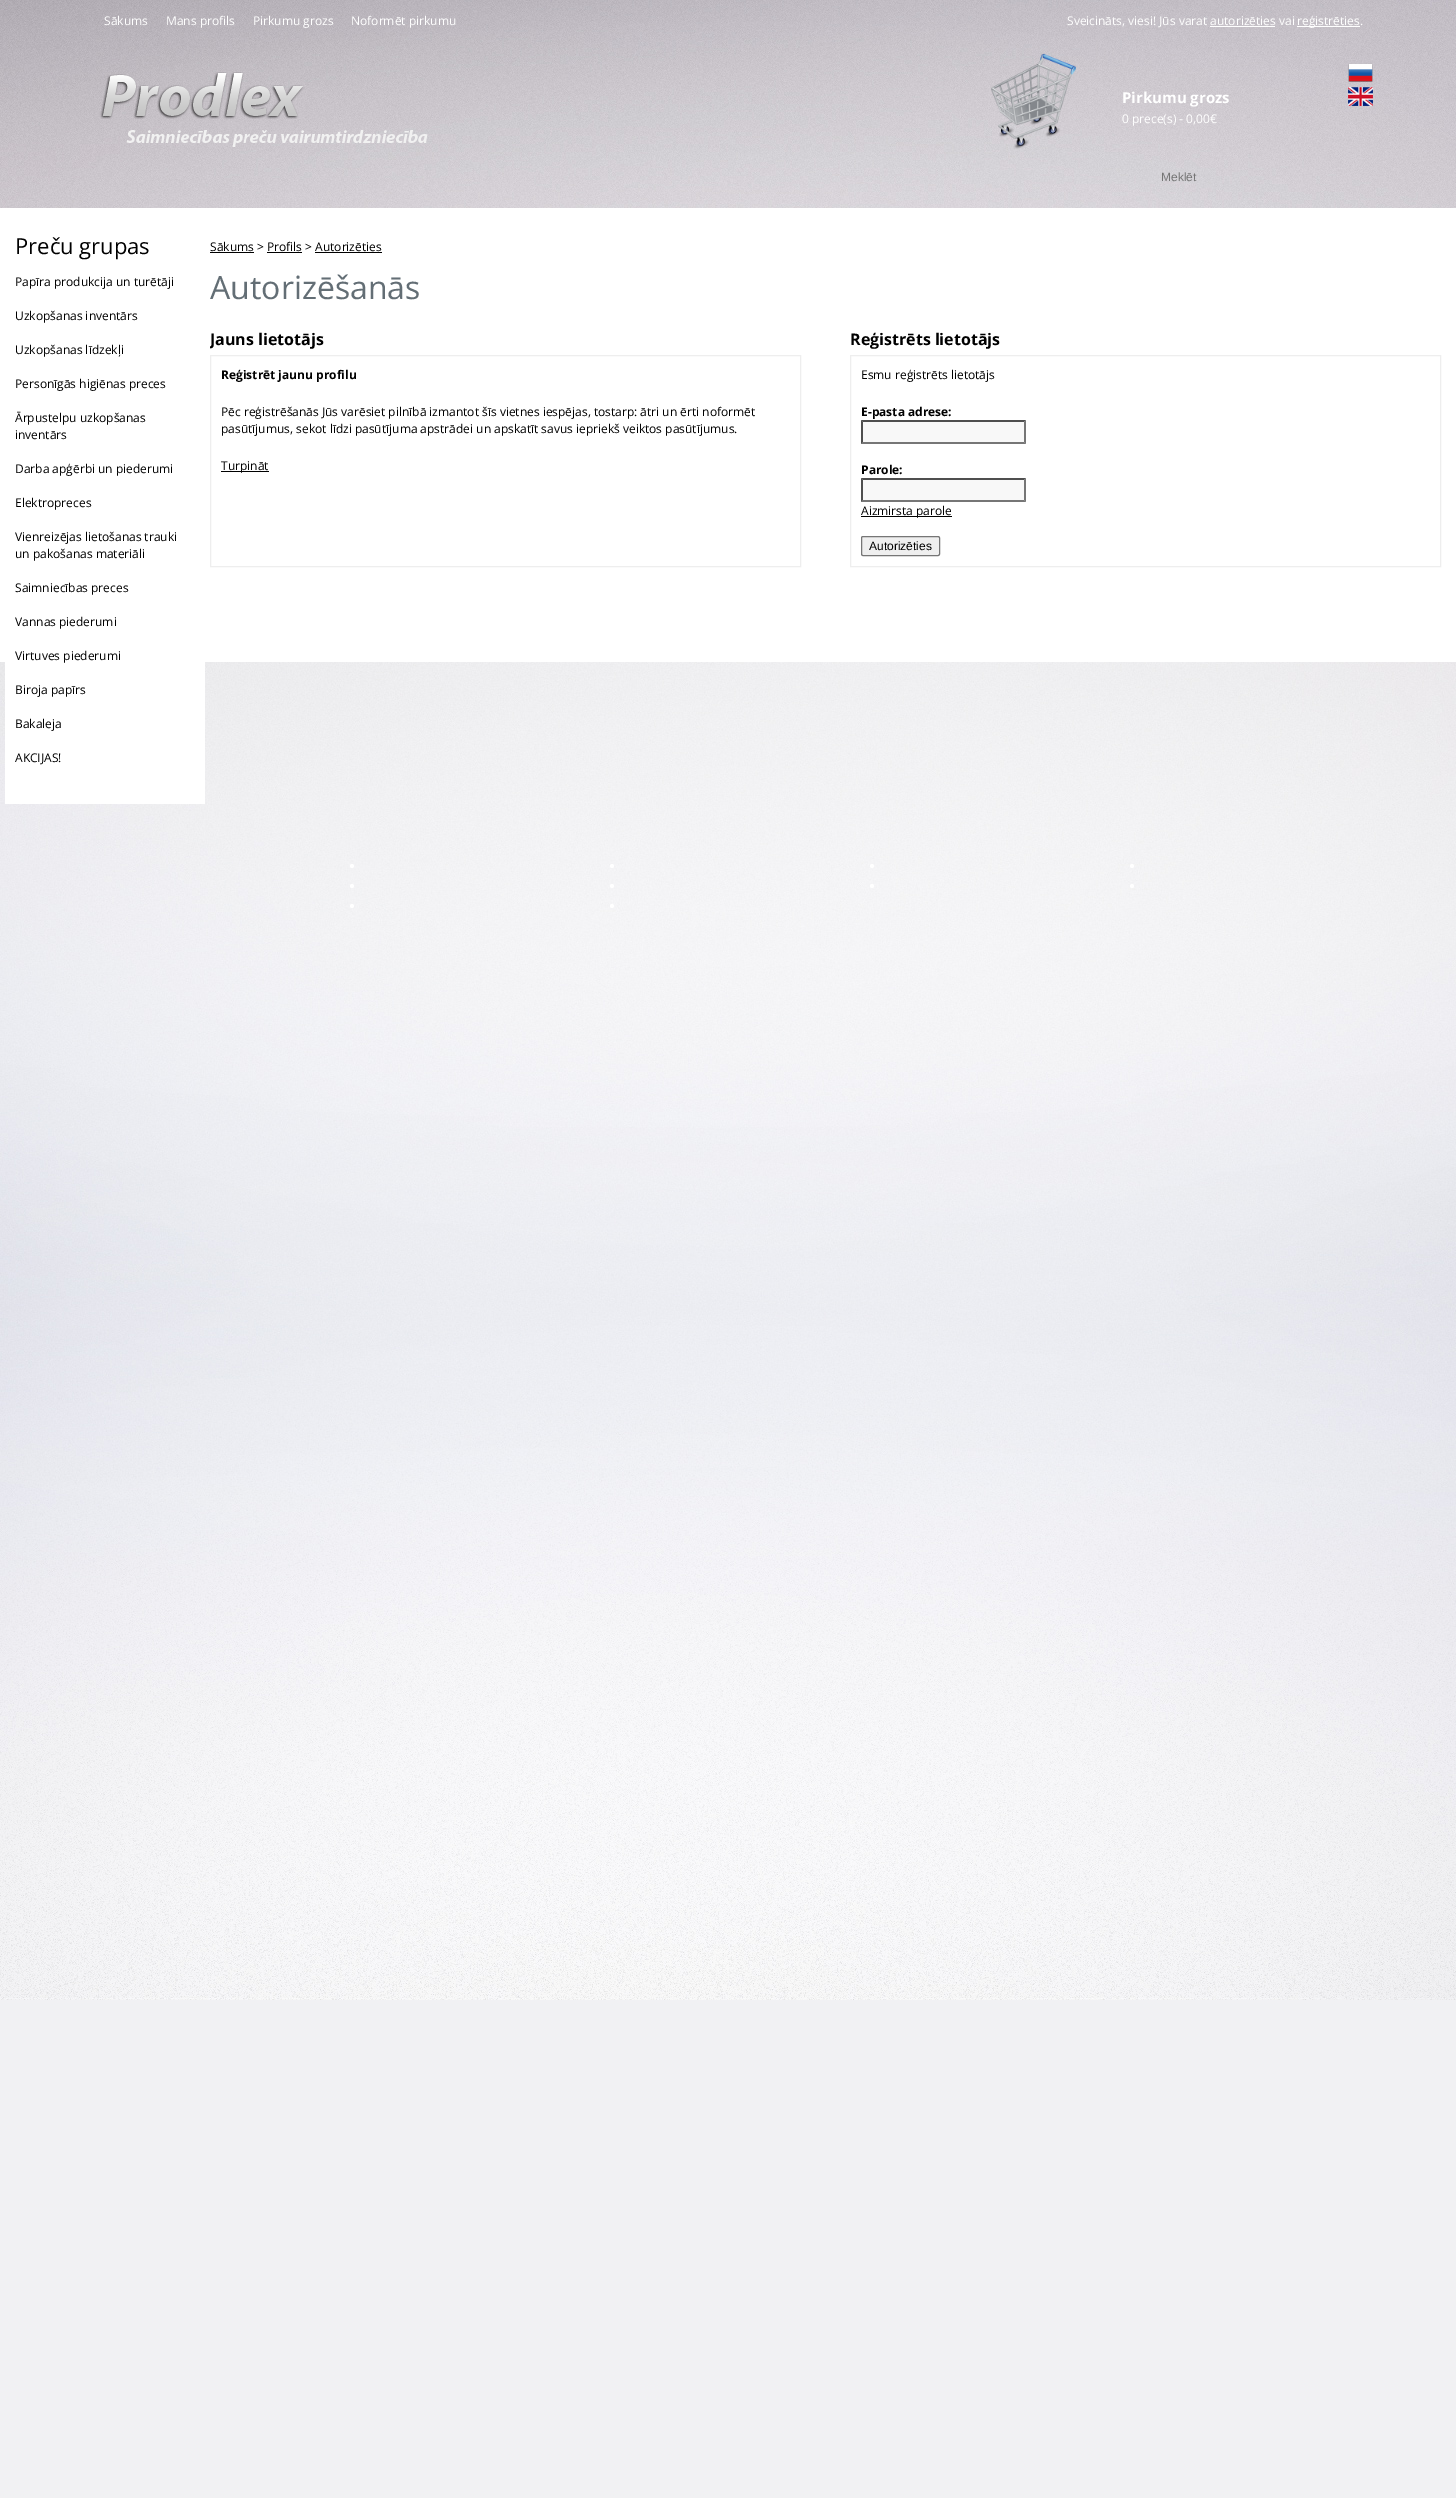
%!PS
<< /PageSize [1456 2498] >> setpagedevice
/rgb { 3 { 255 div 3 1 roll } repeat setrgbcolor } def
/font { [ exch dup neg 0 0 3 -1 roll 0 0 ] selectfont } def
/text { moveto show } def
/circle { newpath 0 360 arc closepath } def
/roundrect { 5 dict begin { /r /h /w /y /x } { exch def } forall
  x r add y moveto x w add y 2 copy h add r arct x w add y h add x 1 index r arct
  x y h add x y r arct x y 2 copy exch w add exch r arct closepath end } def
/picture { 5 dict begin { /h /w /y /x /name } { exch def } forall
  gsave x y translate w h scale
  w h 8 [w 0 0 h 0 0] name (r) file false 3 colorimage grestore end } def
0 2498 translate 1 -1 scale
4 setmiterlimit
241 241 243 rgb
0 0 1456 2498 rectfill
(img_01.rgb) 0 0 1456 2000 picture
255 255 255 rgb
1297 26 63 1 rectfill
1210 26 65 1 rectfill
(img_02.rgb) 100 72 328 75 picture
(img_03.rgb) 991 53 85 96 picture
(img_04.rgb) 1348 63 25 19 picture
(img_05.rgb) 1348 87 25 19 picture
0 208 1456 454 rectfill
5 662 200 142 rectfill
0 0 0 rgb
210 252 44 1 rectfill
267 252 35 1 rectfill
315 252 67 1 rectfill
238 238 238 rgb
210.5 355.5 590 211 rectstroke
0 0 0 rgb
221 471 48 1 rectfill
238 238 238 rgb
850.5 355.5 590 211 rectstroke
248 248 248 rgb
861 420 165 24 rectfill
79 79 79 rgb
861 420 moveto 165 0 rlineto -2 2 rlineto -161 0 rlineto closepath fill
118 118 118 rgb
1026 420 moveto 0 24 rlineto -2 -2 rlineto 0 -20 rlineto closepath fill
1026 444 moveto -165 0 rlineto 2 -2 rlineto 161 0 rlineto closepath fill
79 79 79 rgb
861 444 moveto 0 -24 rlineto 2 2 rlineto 0 20 rlineto closepath fill
248 248 248 rgb
861 478 165 24 rectfill
79 79 79 rgb
861 478 moveto 165 0 rlineto -2 2 rlineto -161 0 rlineto closepath fill
118 118 118 rgb
1026 478 moveto 0 24 rlineto -2 -2 rlineto 0 -20 rlineto closepath fill
1026 502 moveto -165 0 rlineto 2 -2 rlineto 161 0 rlineto closepath fill
79 79 79 rgb
861 502 moveto 0 -24 rlineto 2 2 rlineto 0 20 rlineto closepath fill
0 0 0 rgb
861 516 91 1 rectfill
239 239 239 rgb
861.5 536.5 78 19 1.5 roundrect gsave fill grestore
118 118 118 rgb
stroke
255 255 255 rgb
352 866 2 circle fill
352 886 2 circle fill
352 906 2 circle fill
612 866 2 circle fill
612 886 2 circle fill
612 906 2 circle fill
872 866 2 circle fill
872 886 2 circle fill
1132 866 2 circle fill
1132 886 2 circle fill
/OpenSans-Regular 12 font
(Sākums) 104 25 text
(Mans profils) 166 25 text
(Pirkumu grozs) 253 25 text
(Noformēt pirkumu) 351 25 text
(Sveicināts, viesi! Jūs varat autorizēties vai) 1067 25 text
(reģistrēties.) 1297 25 text
/OpenSans-Bold 15 font
(Pirkumu grozs) 1122 103 text
/OpenSans-Regular 12 font
(0 prece\(s\) - 0,00€) 1122 123 text
/LiberationSans-Regular 12 font
117 117 117 rgb
(Meklēt) 1161 181 text
/OpenSans-Regular 22 font
0 0 0 rgb
(Preču grupas) 15 254 text
/OpenSans-Regular 12 font
(Papīra produkcija un turētāji) 15 286 text
(Uzkopšanas inventārs) 15 320 text
(Uzkopšanas līdzekļi) 15 354 text
(Personīgās higiēnas preces) 15 388 text
(Ārpustelpu uzkopšanas) 15 422 text
(inventārs) 15 439 text
(Darba apģērbi un piederumi) 15 473 text
(Elektropreces) 15 507 text
(Vienreizējas lietošanas trauki) 15 541 text
(un pakošanas materiāli) 15 558 text
(Saimniecības preces) 15 592 text
(Vannas piederumi) 15 626 text
(Virtuves piederumi) 15 660 text
(Biroja papīrs) 15 694 text
(Bakaleja) 15 728 text
(AKCIJAS!) 15 762 text
(Sākums > Profils > Autorizēties) 210 251 text
/OpenSans-Regular 32 font
99 110 117 rgb
(Autorizēšanās) 210 299 text
gsave
210 328 1231 259 rectclip
/OpenSans-Bold 16 font
0 0 0 rgb
(Jauns lietotājs) 210 345 text
grestore
/OpenSans-Bold 12 font
0 0 0 rgb
(Reģistrēt jaunu profilu) 221 379 text
/OpenSans-Regular 12 font
(Pēc reģistrēšanās Jūs varēsiet pilnībā izmantot šīs vietnes iespējas, tostarp: ātri un ērti noformēt) 221 416 text
(pasūtījumus, sekot līdzi pasūtījuma apstrādei un apskatīt savus iepriekš veiktos pasūtījumus.) 221 433 text
(Turpināt) 221 470 text
/OpenSans-Bold 16 font
(Reģistrēts lietotājs) 850 345 text
/OpenSans-Regular 12 font
(Esmu reģistrēts lietotājs) 861 379 text
/OpenSans-Bold 12 font
(E-pasta adrese:) 861 416 text
(Parole:) 861 474 text
/OpenSans-Regular 12 font
(Aizmirsta parole) 861 515 text
/LiberationSans-Regular 12 font
(Autorizēties) 869 550 text
showpage
